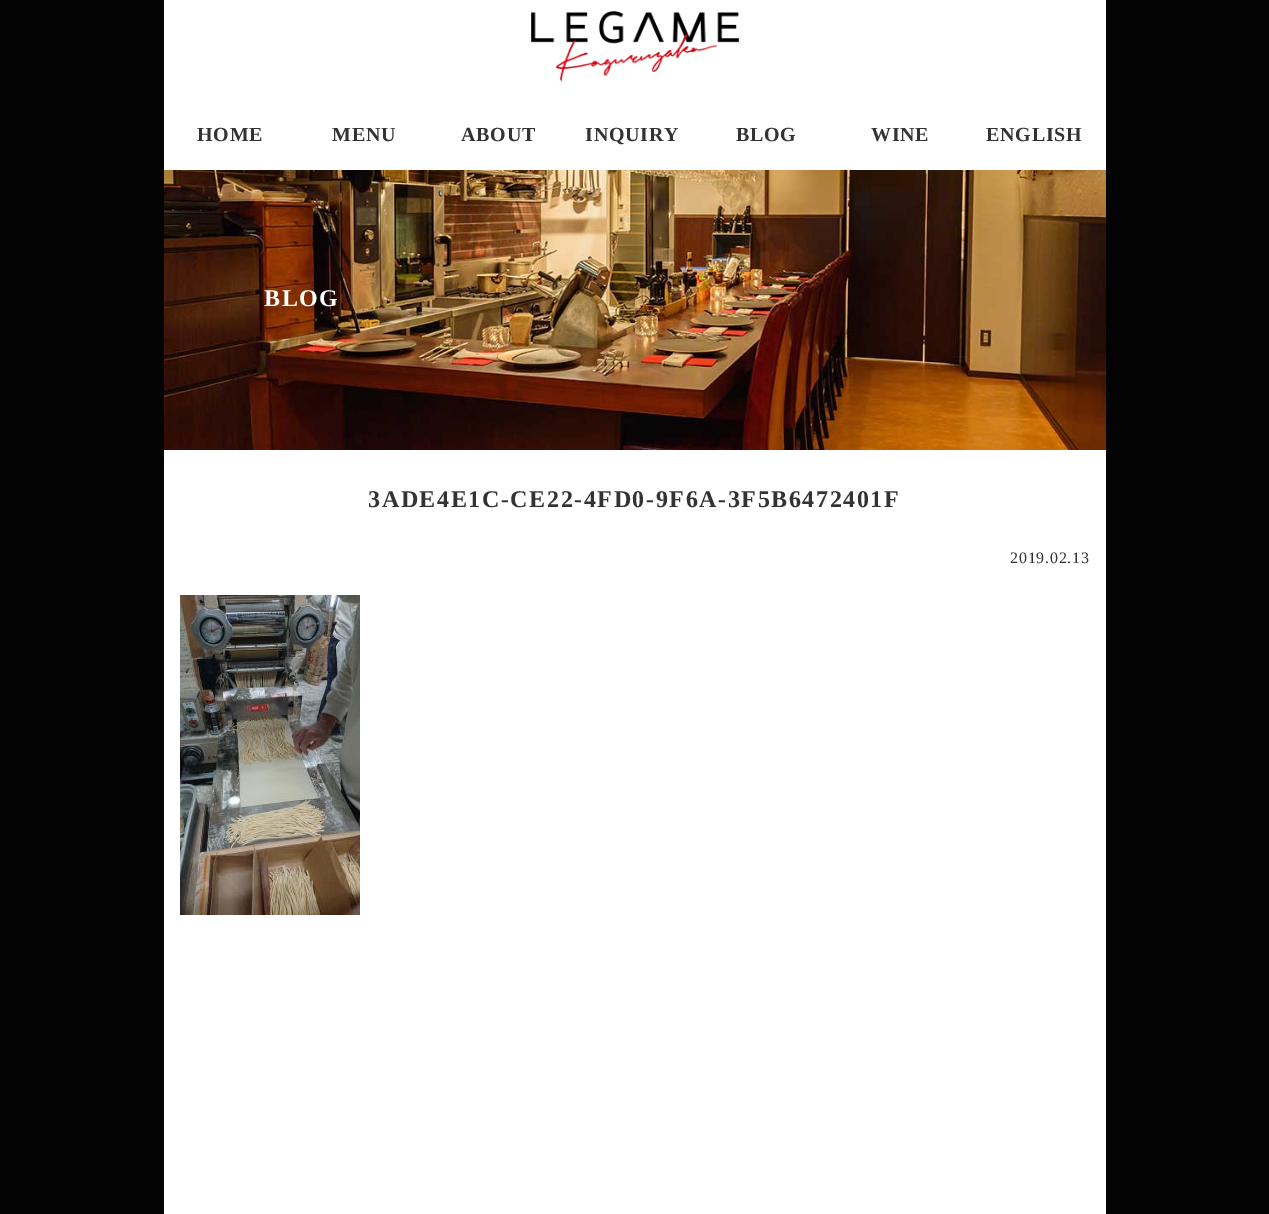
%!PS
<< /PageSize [1269 1214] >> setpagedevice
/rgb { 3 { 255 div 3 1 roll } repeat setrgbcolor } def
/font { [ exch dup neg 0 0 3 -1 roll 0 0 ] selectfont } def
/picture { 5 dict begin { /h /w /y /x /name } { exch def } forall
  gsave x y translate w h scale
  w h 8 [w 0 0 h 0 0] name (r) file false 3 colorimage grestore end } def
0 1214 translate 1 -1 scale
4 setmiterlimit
3 3 3 rgb
0 0 1269 1214 rectfill
255 255 255 rgb
164 0 942 1214 rectfill
(img_01.rgb) 531 11 209 71 picture
(img_02.rgb) 164 170 942 280 picture
(img_03.rgb) 180 595 180 320 picture
/LiberationSerif-Bold 20 font
51 51 51 rgb
197 141 moveto 0.75 0 (HOME) ashow
332 141 moveto 0.75 0 (MENU) ashow
461 141 moveto 0.75 0 (ABOUT) ashow
585 141 moveto 0.75 0 (INQUIRY) ashow
736 141 moveto 0.75 0 (BLOG) ashow
871 141 moveto 0.75 0 (WINE) ashow
986 141 moveto 0.75 0 (ENGLISH) ashow
/LiberationSerif-Bold 24 font
255 255 255 rgb
264 306 moveto 1.6 0 (BLOG) ashow
51 51 51 rgb
368 507 moveto 1.6 0 (3ADE4E1C-CE22-4FD0-9F6A-3F5B6472401F) ashow
/LiberationSerif-Regular 16 font
1010 563 moveto 0.75 0 (2019.02.13) ashow
showpage
